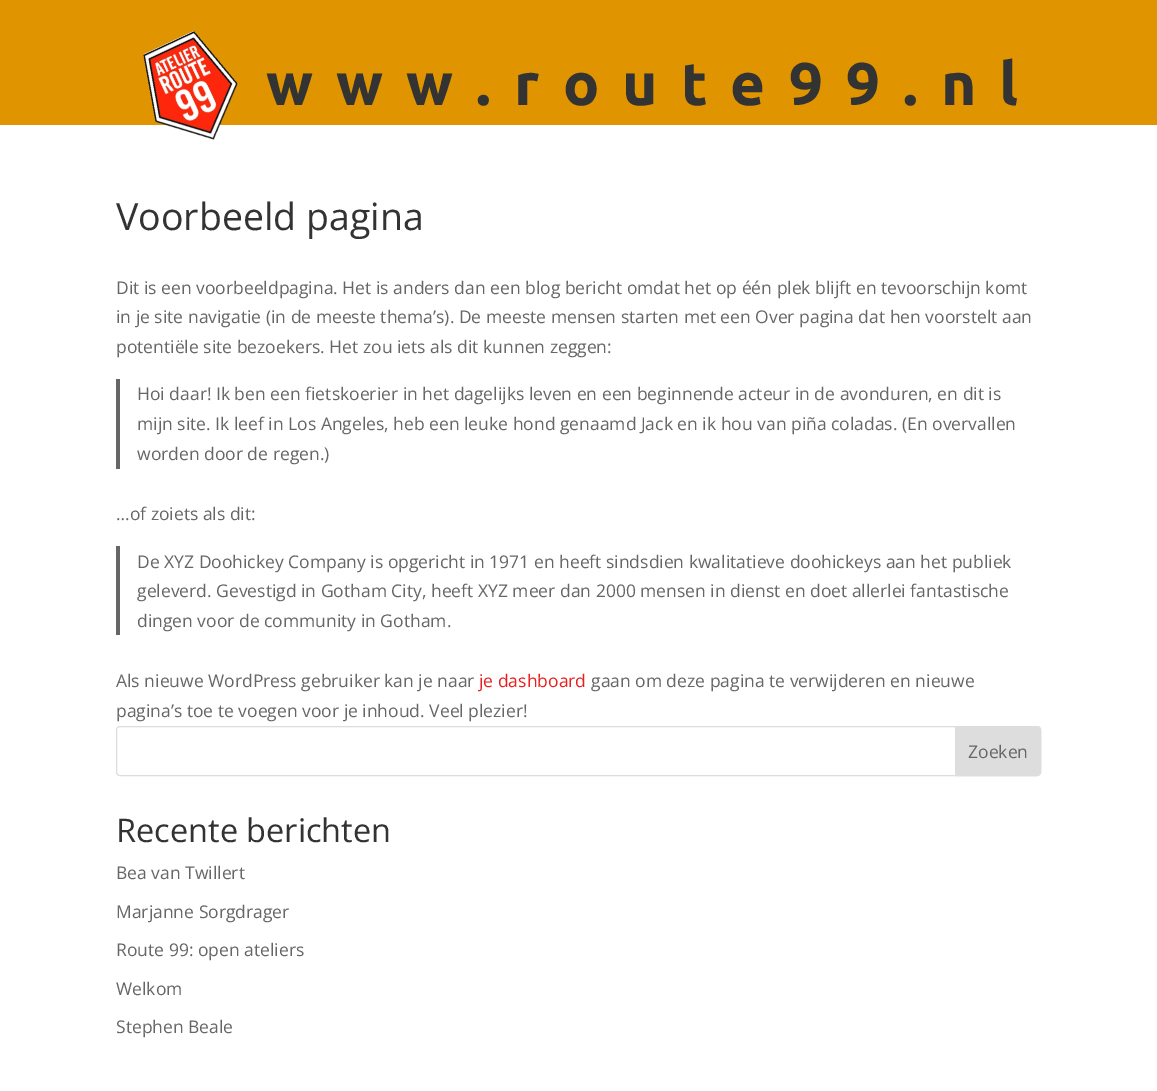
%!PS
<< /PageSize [1157 1091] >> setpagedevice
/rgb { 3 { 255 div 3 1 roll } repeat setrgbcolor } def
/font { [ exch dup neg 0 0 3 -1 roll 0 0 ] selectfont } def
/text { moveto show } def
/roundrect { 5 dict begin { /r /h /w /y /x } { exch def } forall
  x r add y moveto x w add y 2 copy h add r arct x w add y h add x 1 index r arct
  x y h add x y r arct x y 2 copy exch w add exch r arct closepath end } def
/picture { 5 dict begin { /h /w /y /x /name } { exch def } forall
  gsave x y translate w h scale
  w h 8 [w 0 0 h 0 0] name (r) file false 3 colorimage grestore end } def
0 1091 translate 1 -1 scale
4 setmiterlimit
255 255 255 rgb
0 0 1157 1091 rectfill
224 149 0 rgb
0 0 1157 125 rectfill
(img_01.rgb) 143 31 95 109 picture
102 102 102 rgb
116 379 4 90 rectfill
116 546 4 89 rectfill
221 221 221 rgb
116.5 726.5 924 49 3.5 roundrect stroke
955.5 726.5 moveto 81.5 0 rlineto 2 0 3.5 1.5 3.5 3.5 rcurveto 0 42 rlineto 0 2 -1.5 3.5 -3.5 3.5 rcurveto -81.5 0 rlineto closepath gsave fill grestore
stroke
/Ubuntu-Bold 60 font
51 51 51 rgb
266 105 moveto 23.1 0 (www.route99.nl) ashow
/OpenSans-Regular 37.5 font
(Voorbeeld pagina) 116 230 text
/OpenSans-Regular 17.5 font
102 102 102 rgb
(Dit is een voorbeeldpagina. Het is anders dan een blog bericht omdat het op één plek blijft en tevoorschijn komt) 116 294 text
(in je site navigatie \(in de meeste thema’s\). De meeste mensen starten met een Over pagina dat hen voorstelt aan) 116 323 text
(potentiële site bezoekers. Het zou iets als dit kunnen zeggen:) 116 353 text
(Hoi daar! Ik ben een fietskoerier in het dagelijks leven en een beginnende acteur in de avonduren, en dit is) 137 400 text
(mijn site. Ik leef in Los Angeles, heb een leuke hond genaamd Jack en ik hou van piña coladas. \(En overvallen) 137 430 text
(worden door de regen.\)) 137 460 text
(…of zoiets als dit:) 116 520 text
(De XYZ Doohickey Company is opgericht in 1971 en heeft sindsdien kwalitatieve doohickeys aan het publiek) 137 568 text
(geleverd. Gevestigd in Gotham City, heeft XYZ meer dan 2000 mensen in dienst en doet allerlei fantastische) 137 597 text
(dingen voor de community in Gotham.) 137 627 text
(Als nieuwe WordPress gebruiker kan je naar) 116 687 text
234 30 30 rgb
(je dashboard) 479 687 text
102 102 102 rgb
(gaan om deze pagina te verwijderen en nieuwe) 591 687 text
(pagina’s toe te voegen voor je inhoud. Veel plezier!) 116 717 text
(Zoeken) 968 758 text
/OpenSans-Regular 32.5 font
51 51 51 rgb
(Recente berichten) 116 842 text
/OpenSans-Regular 17.5 font
102 102 102 rgb
(Bea van Twillert) 116 879 text
(Marjanne Sorgdrager) 116 918 text
(Route 99: open ateliers) 116 956 text
(Welkom) 116 995 text
(Stephen Beale) 116 1033 text
showpage
